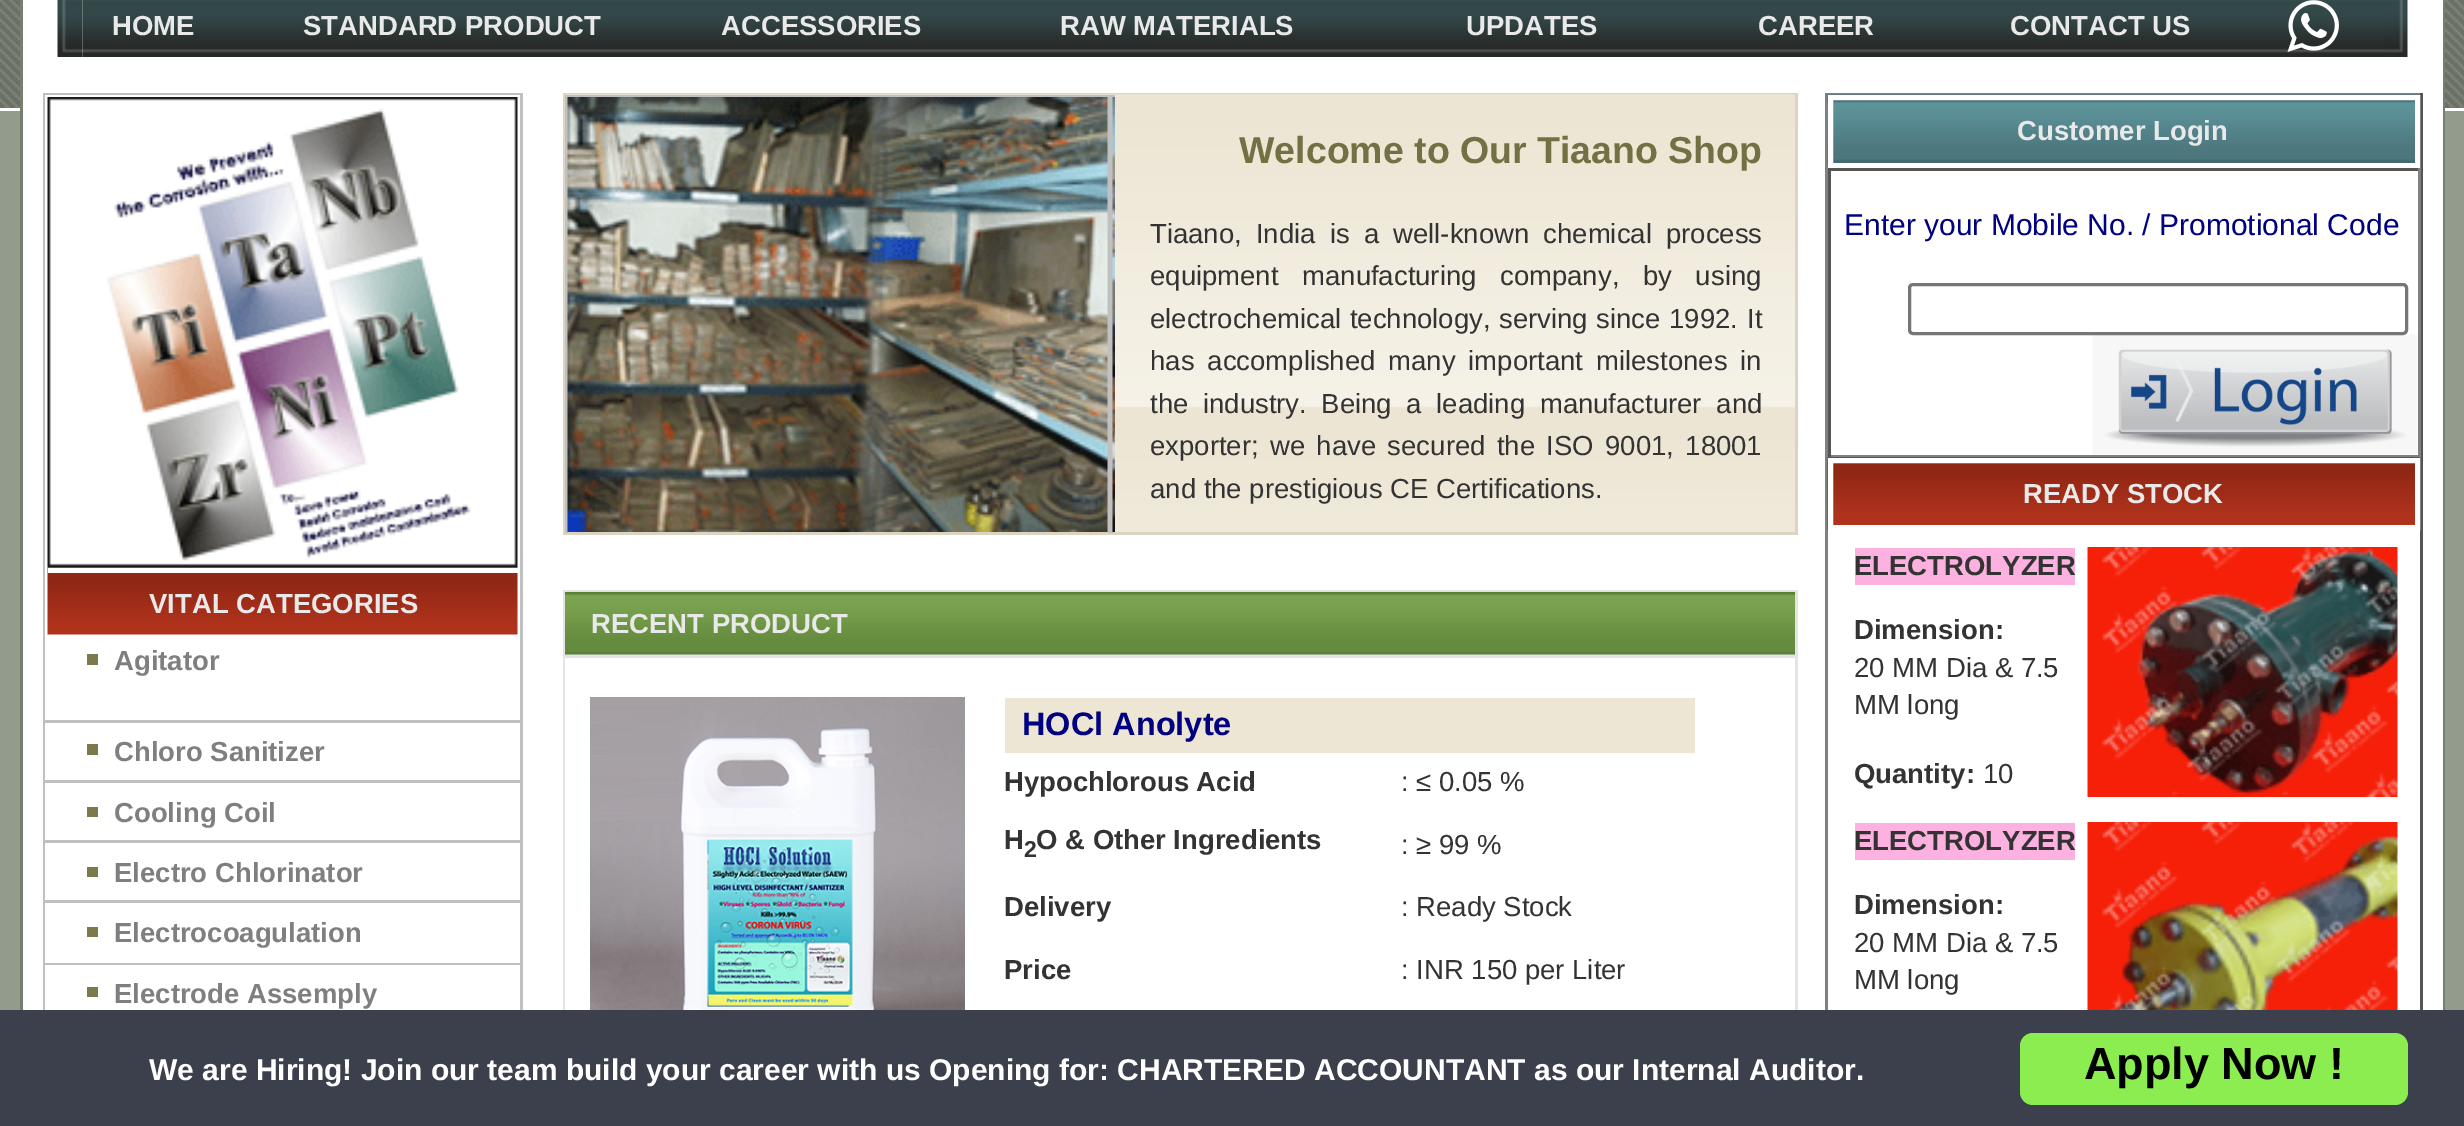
%!PS
<< /PageSize [2464 1126] >> setpagedevice
/rgb { 3 { 255 div 3 1 roll } repeat setrgbcolor } def
/font { [ exch dup neg 0 0 3 -1 roll 0 0 ] selectfont } def
/text { moveto show } def
/roundrect { 5 dict begin { /r /h /w /y /x } { exch def } forall
  x r add y moveto x w add y 2 copy h add r arct x w add y h add x 1 index r arct
  x y h add x y r arct x y 2 copy exch w add exch r arct closepath end } def
/picture { 5 dict begin { /h /w /y /x /name } { exch def } forall
  gsave x y translate w h scale
  w h 8 [w 0 0 h 0 0] name (r) file false 3 colorimage grestore end } def
0 1126 translate 1 -1 scale
4 setmiterlimit
147 155 140 rgb
0 0 2464 1126 rectfill
(img_01.rgb) 0 0 20 108 picture
255 255 255 rgb
0 108 20 3 rectfill
117 127 109 rgb
20 0 2425 1010 rectfill
255 255 255 rgb
23 0 2420 1010 rectfill
(img_03.rgb) 82 0 2303 57 picture
(img_02.rgb) 57 0 26 57 picture
(img_04.rgb) 2287 0 52 52 picture
(img_05.rgb) 2385 0 23 57 picture
192 192 192 rgb
43 93 480 917 rectfill
255 255 255 rgb
45 95 475 625 rectfill
(img_06.rgb) 47 97 471 470 picture
(img_07.rgb) 47 567 471 68 picture
48 568 470 5 rectfill
123 122 75 rgb
87 654 11 11 rectfill
255 255 255 rgb
45 723 475 57 rectfill
123 122 75 rgb
87 744 11 11 rectfill
255 255 255 rgb
45 783 475 57 rectfill
123 122 75 rgb
87 807 11 10 rectfill
255 255 255 rgb
45 843 475 57 rectfill
123 122 75 rgb
87 867 11 10 rectfill
255 255 255 rgb
45 903 475 60 rectfill
123 122 75 rgb
87 927 11 10 rectfill
255 255 255 rgb
45 965 475 45 rectfill
123 122 75 rgb
87 987 11 10 rectfill
220 212 192 rgb
563 93 1235 442 rectfill
(img_08.rgb) 565 94 1230 438 picture
gsave
565 95 550 438 rectclip
192 192 192 rgb
3 setlinewidth
566.5 96.5 542 440 rectstroke
grestore
(img_09.rgb) 567 97 541 435 picture
228 228 228 rgb
563 590 1235 420 rectfill
(img_11.rgb) 565 592 1230 63 picture
255 255 255 rgb
565 658 1230 352 rectfill
(img_12.rgb) 590 697 375 313 picture
237 230 212 rgb
1005 698 690 55 rectfill
128 128 128 rgb
1825 93 598 2 rectfill
85 85 85 rgb
2420 93 3 917 rectfill
128 128 128 rgb
1825 93 3 917 rectfill
(img_13.rgb) 1827 94 593 73 picture
255 255 255 rgb
5 setlinewidth
1830.5 97.5 587 68 rectstroke
85 85 85 rgb
1828 168 592 3 rectfill
128 128 128 rgb
2418 168 3 290 rectfill
1828 455 592 2 rectfill
85 85 85 rgb
1828 168 3 290 rectfill
(img_14.rgb) 2092 334 326 121 picture
255 255 255 rgb
1909.5 284.5 497 49 3.5 roundrect gsave fill grestore
118 118 118 rgb
3 setlinewidth
stroke
(img_15.rgb) 1827 457 593 73 picture
255 255 255 rgb
5 setlinewidth
1830.5 460.5 587 67 rectstroke
252 177 225 rgb
1855 548 220 37 rectfill
(img_16.rgb) 2087 547 311 250 picture
1855 823 220 37 rectfill
(img_17.rgb) 2087 822 311 188 picture
60 64 77 rgb
0 1010 2464 116 rectfill
139 237 79 rgb
2020 1033 388 72 13 roundrect fill
(img_18.rgb) 2445 0 19 108 picture
255 255 255 rgb
2445 108 19 3 rectfill
/LiberationSans-Bold 27.5 font
233 233 233 rgb
(HOME) 112 35 text
(STANDARD PRODUCT) 303 35 text
(ACCESSORIES) 721 35 text
(RAW MATERIALS) 1060 35 text
(UPDATES) 1466 35 text
(CAREER) 1758 35 text
(CONTACT US) 2010 35 text
(VITAL CATEGORIES) 149 613 text
127 127 127 rgb
(Agitator) 114 670 text
(Chloro Sanitizer) 114 761 text
(Cooling Coil) 114 822 text
(Electro Chlorinator) 114 882 text
(Electrocoagulation) 114 942 text
(Electrode Assemply) 114 1003 text
/LiberationSans-Bold 37.5 font
114 113 68 rgb
(Welcome to Our Tiaano Shop) 1239 163 text
/LiberationSans-Regular 27.5 font
51 51 51 rgb
1150 243 moveto 6.5 0 32 (Tiaano, India is a well-known chemical process) widthshow
1150 285 moveto 16 0 32 (equipment manufacturing company, by using) widthshow
1150 328 moveto 1 0 32 (electrochemical technology, serving since 1992.) widthshow
(It) 1747 328 text
1150 370 moveto 5.25 0 32 (has accomplished many important milestones in) widthshow
1150 413 moveto 7 0 32 (the industry. Being a leading manufacturer and) widthshow
1150 455 moveto 3.75 0 32 (exporter; we have secured the ISO 9001, 18001) widthshow
gsave
565 95 550 438 rectclip
192 192 192 rgb
3 setlinewidth
1111.5 96.5 542 440 rectstroke
grestore
(img_10.rgb) 1112 97 3 435 picture
(and the prestigious CE Certifications.) 1150 498 text
/LiberationSans-Bold 27.5 font
233 233 233 rgb
(RECENT PRODUCT) 591 633 text
/LiberationSans-Bold 32.5 font
0 0 128 rgb
(HOCl Anolyte) 1022 735 text
/LiberationSans-Bold 27.5 font
51 51 51 rgb
(Hypochlorous Acid) 1004 791 text
/LiberationSans-Regular 27.5 font
(: ≤ 0.05 %) 1401 791 text
/LiberationSans-Bold 27.5 font
(H) 1004 849 text
/LiberationSans-Bold 23 font
(2) 1024 857 text
/LiberationSans-Bold 27.5 font
(O & Other Ingredients) 1036 849 text
/LiberationSans-Regular 27.5 font
(: ≥ 99 %) 1401 854 text
/LiberationSans-Bold 27.5 font
(Delivery) 1004 916 text
/LiberationSans-Regular 27.5 font
(: Ready Stock) 1401 916 text
/LiberationSans-Bold 27.5 font
(Price) 1004 979 text
/LiberationSans-Regular 27.5 font
(: INR 150 per Liter) 1401 979 text
/LiberationSans-Bold 27.5 font
233 233 233 rgb
(Customer Login) 2017 140 text
/LiberationSans-Regular 30 font
0 0 128 rgb
(Enter your Mobile No. / Promotional Code) 1844 235 text
/LiberationSans-Bold 27.5 font
233 233 233 rgb
(READY STOCK) 2023 503 text
51 51 51 rgb
(ELECTROLYZER) 1854 575 text
(Dimension:) 1854 639 text
/LiberationSans-Regular 27.5 font
(20 MM Dia & 7.5) 1854 677 text
(MM long) 1854 714 text
/LiberationSans-Bold 27.5 font
(Quantity:) 1854 783 text
/LiberationSans-Regular 27.5 font
(10) 1983 783 text
/LiberationSans-Bold 27.5 font
(ELECTROLYZER) 1854 850 text
(Dimension:) 1854 914 text
/LiberationSans-Regular 27.5 font
(20 MM Dia & 7.5) 1854 952 text
(MM long) 1854 989 text
/LiberationSans-Bold 30 font
255 255 255 rgb
(We are Hiring! Join our team build your career with us Opening for: CHARTERED ACCOUNTANT as our Internal Auditor.) 149 1080 text
/LiberationSans-Bold 45 font
0 0 0 rgb
(Apply Now !) 2084 1079 text
showpage
